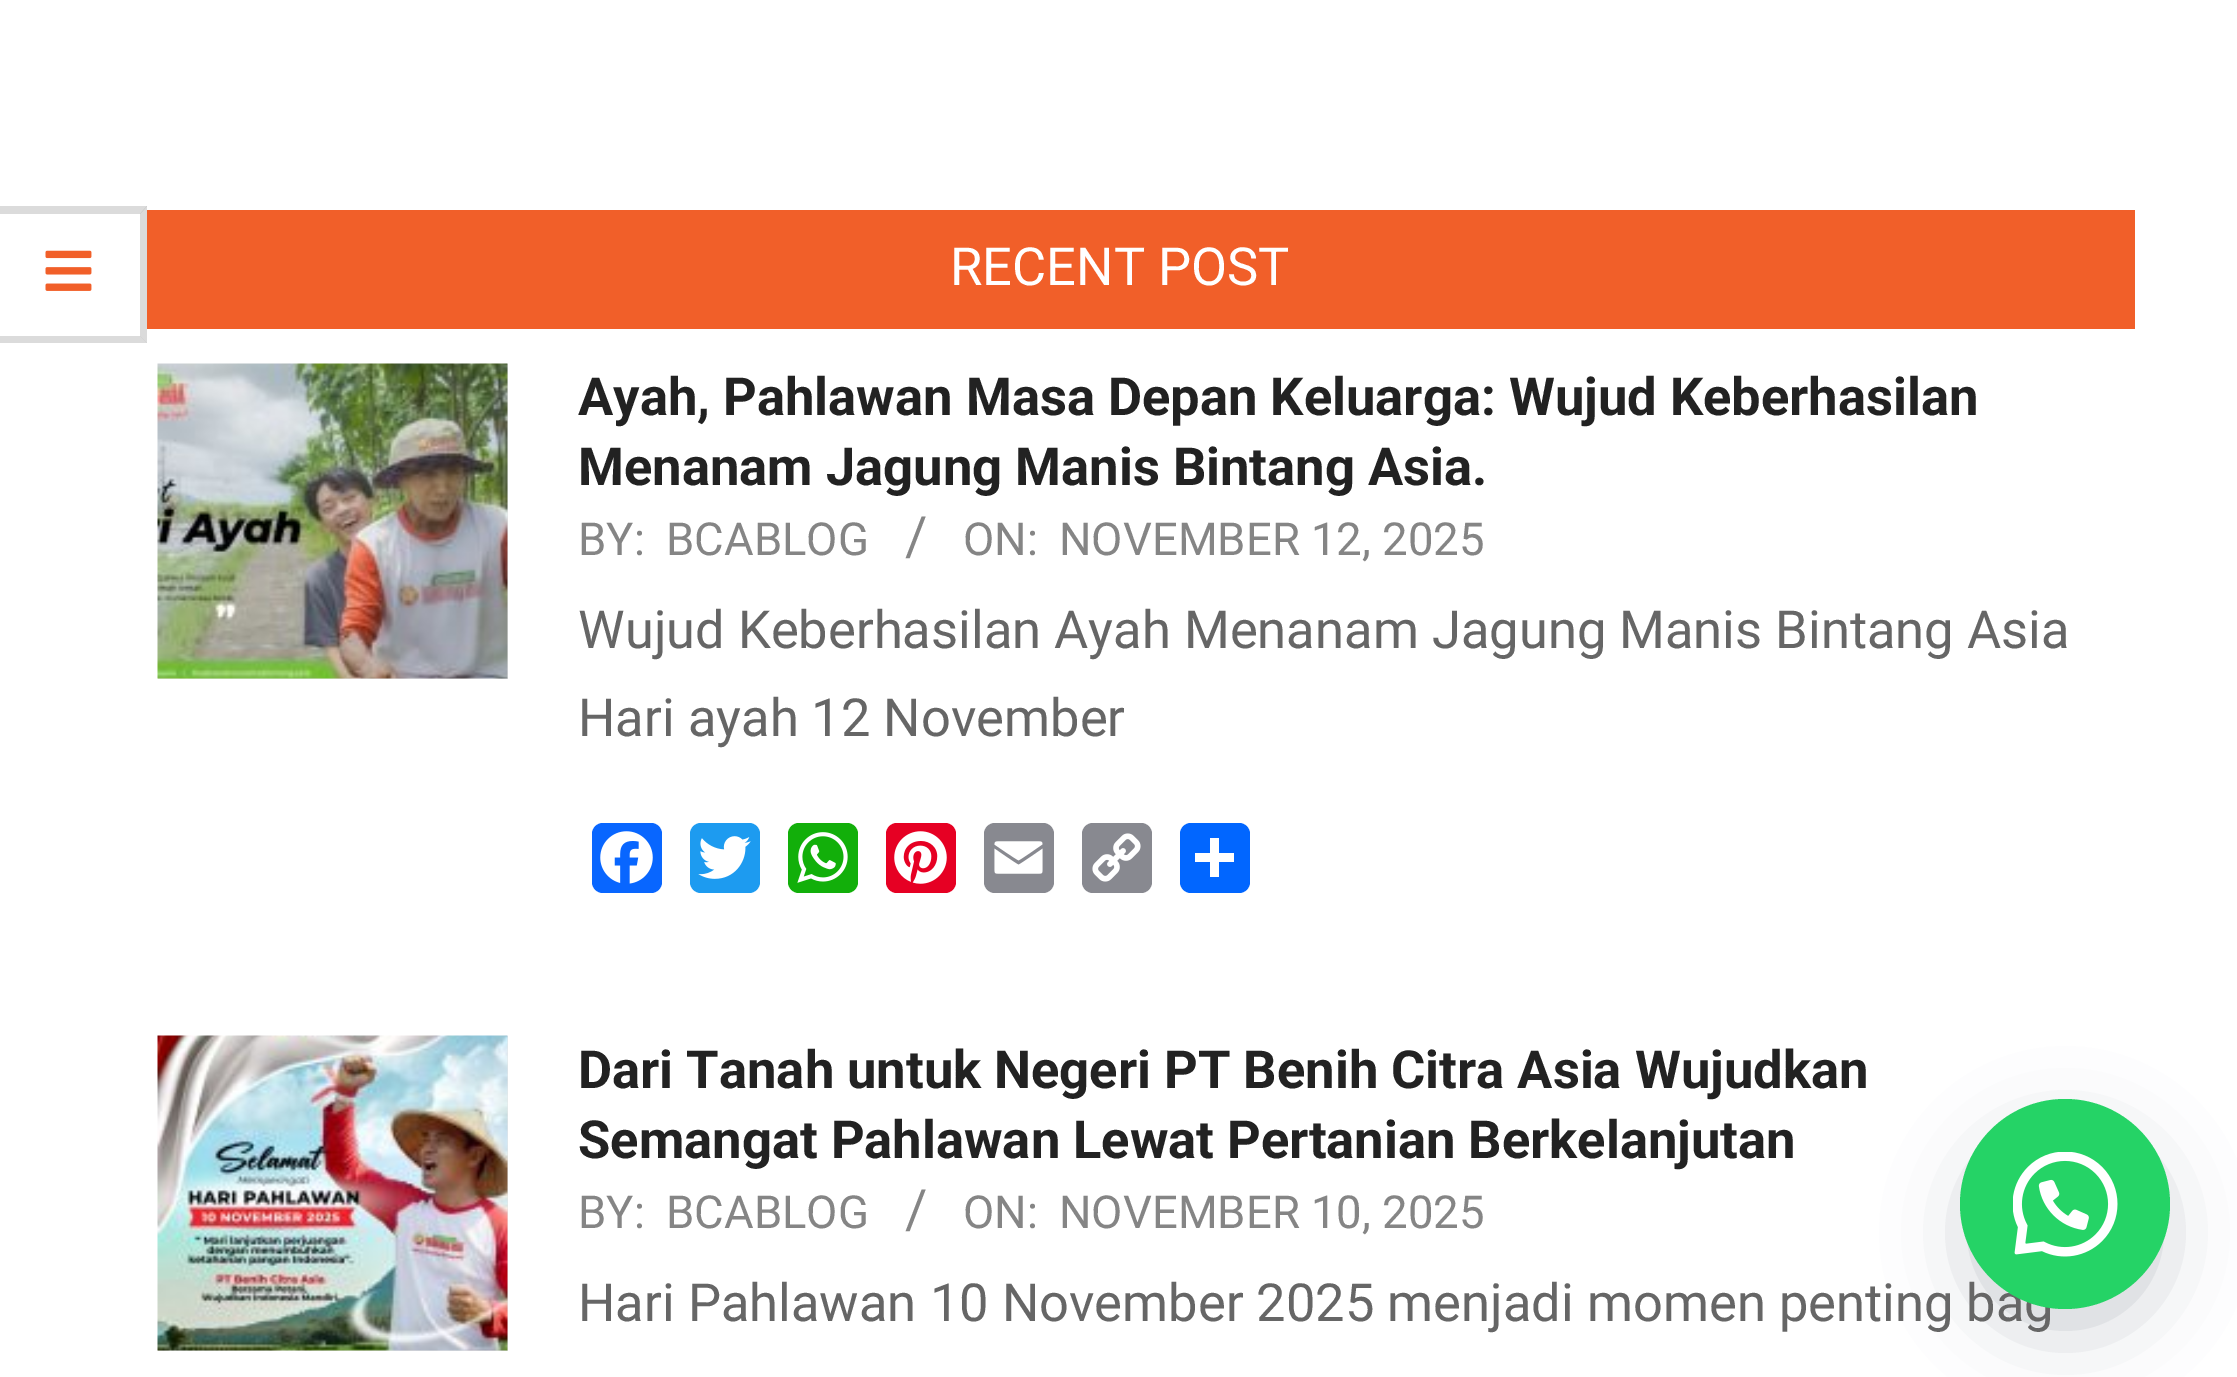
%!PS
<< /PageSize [2237 1377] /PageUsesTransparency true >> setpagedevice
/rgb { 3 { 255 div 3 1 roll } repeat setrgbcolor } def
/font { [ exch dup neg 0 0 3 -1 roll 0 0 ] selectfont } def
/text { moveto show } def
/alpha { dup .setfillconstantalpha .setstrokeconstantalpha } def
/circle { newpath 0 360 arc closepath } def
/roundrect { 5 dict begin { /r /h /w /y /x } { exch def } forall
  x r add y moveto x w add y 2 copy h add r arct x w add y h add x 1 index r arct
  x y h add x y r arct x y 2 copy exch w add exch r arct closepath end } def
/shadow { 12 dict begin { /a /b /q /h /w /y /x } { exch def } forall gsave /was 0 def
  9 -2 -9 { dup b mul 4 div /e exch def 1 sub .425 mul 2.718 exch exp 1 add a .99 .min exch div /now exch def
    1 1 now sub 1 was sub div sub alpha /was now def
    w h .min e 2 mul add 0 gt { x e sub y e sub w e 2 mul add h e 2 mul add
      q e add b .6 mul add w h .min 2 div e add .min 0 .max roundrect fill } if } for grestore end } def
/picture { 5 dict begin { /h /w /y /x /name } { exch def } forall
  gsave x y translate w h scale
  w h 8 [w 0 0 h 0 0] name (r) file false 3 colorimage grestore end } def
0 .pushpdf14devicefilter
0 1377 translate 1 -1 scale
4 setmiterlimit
255 255 255 rgb
0 0 2237 1377 rectfill
219 219 219 rgb
0 206 moveto 147 0 rlineto -7 8 rlineto -140 0 rlineto closepath fill
0.14 alpha
0 0 0 rgb
147 206 moveto 0 137 rlineto -7 -7 rlineto 0 -122 rlineto closepath fill
147 343 moveto -147 0 rlineto 0 -7 rlineto 140 0 rlineto closepath fill
1 alpha
(img_01.rgb) 45 250 47 41 picture
241 95 41 rgb
147 210 1988 119 rectfill
230 230 230 rgb
158 364 350 315 rectfill
(img_02.rgb) 157 363 351 316 picture
8 102 255 rgb
592 823 70 70 11 roundrect fill
(img_03.rgb) 600 831 53 53 picture
29 155 240 rgb
690 823 70 70 11 roundrect fill
(img_04.rgb) 698 836 53 43 picture
18 175 10 rgb
788 823 70 70 11 roundrect fill
(img_05.rgb) 797 832 51 51 picture
230 0 35 rgb
886 823 70 70 11 roundrect fill
(img_06.rgb) 894 831 53 53 picture
136 137 144 rgb
984 823 70 70 11 roundrect fill
(img_07.rgb) 994 841 49 33 picture
1082 823 70 70 11 roundrect fill
(img_08.rgb) 1092 833 49 49 picture
1 102 255 rgb
1180 823 70 70 11 roundrect fill
255 255 255 rgb
1210 838 9 39 rectfill
1195 853 39 9 rectfill
230 230 230 rgb
158 1036 350 315 rectfill
(img_09.rgb) 157 1035 351 316 picture
45 62 79 rgb
1978 1145 175 175 87.5 44 0.3 shadow
/Roboto-Regular 52.5 font
255 255 255 rgb
(RECENT POST) 950 285 text
/Roboto-Bold 52.5 font
34 34 34 rgb
(Ayah, Pahlawan Masa Depan Keluarga: Wujud Keberhasilan) 578 415 text
(Menanam Jagung Manis Bintang Asia.) 578 485 text
/Roboto-Regular 45.5 font
133 133 133 rgb
(BY:) 578 555 text
(BCABLOG) 666 555 text
/Roboto-Regular 54 font
(/) 905 555 text
/Roboto-Regular 45.5 font
(ON:) 963 555 text
(NOVEMBER 12, 2025) 1059 555 text
/Roboto-Regular 52.5 font
102 102 102 rgb
(Wujud Keberhasilan Ayah Menanam Jagung Manis Bintang Asia) 578 648 text
(Hari ayah 12 November) 578 736 text
/Roboto-Bold 52.5 font
34 34 34 rgb
(Dari Tanah untuk Negeri PT Benih Citra Asia Wujudkan) 578 1088 text
(Semangat Pahlawan Lewat Pertanian Berkelanjutan) 578 1158 text
/Roboto-Regular 45.5 font
133 133 133 rgb
(BY:) 578 1228 text
(BCABLOG) 666 1228 text
/Roboto-Regular 54 font
(/) 905 1228 text
/Roboto-Regular 45.5 font
(ON:) 963 1228 text
(NOVEMBER 10, 2025) 1059 1228 text
/Roboto-Regular 52.5 font
102 102 102 rgb
(Hari Pahlawan 10 November 2025 menjadi momen penting bag) 578 1321 text
37 211 102 rgb
2065 1204 105 circle fill
(img_10.rgb) 2013 1152 105 105 picture
.poppdf14devicefilter showpage
